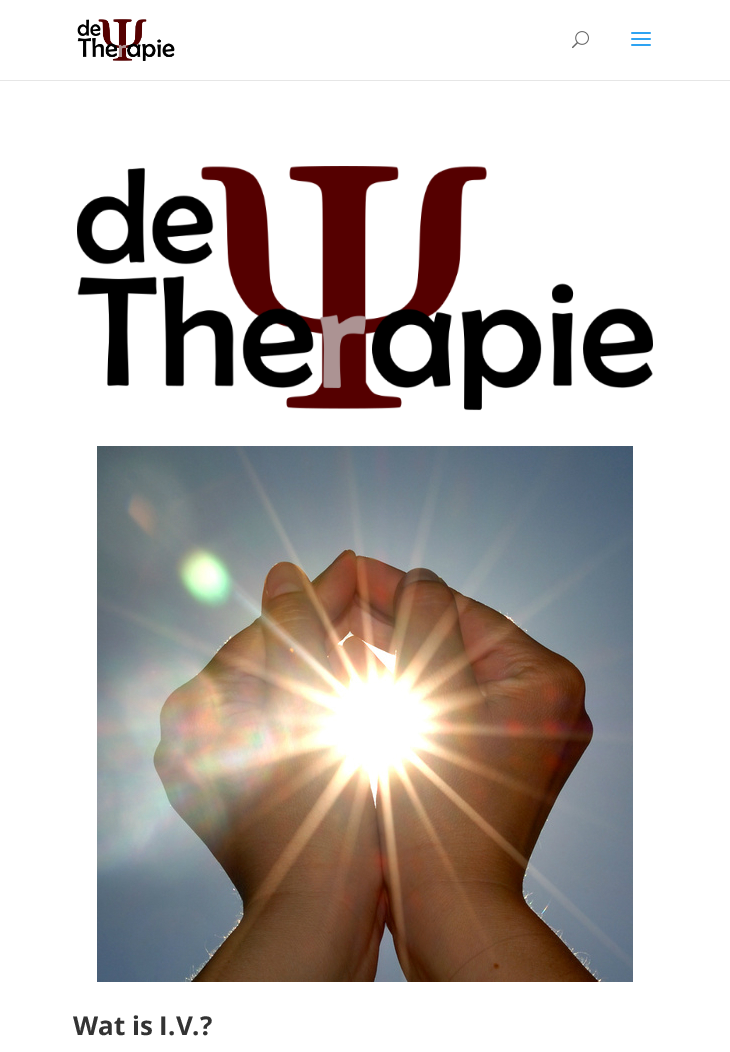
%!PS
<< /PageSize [730 1052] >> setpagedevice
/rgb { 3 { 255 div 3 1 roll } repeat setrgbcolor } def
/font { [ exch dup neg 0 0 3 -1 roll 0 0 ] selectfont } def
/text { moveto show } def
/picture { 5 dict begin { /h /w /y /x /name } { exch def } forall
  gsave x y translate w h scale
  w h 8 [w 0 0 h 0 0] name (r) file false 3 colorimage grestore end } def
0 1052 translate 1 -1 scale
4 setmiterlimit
255 255 255 rgb
0 0 730 1052 rectfill
230 230 230 rgb
0 80 730 1 rectfill
(img_01.rgb) 77 19 98 42 picture
(img_02.rgb) 572 31 17 18 picture
(img_03.rgb) 631 32 20 14 picture
(img_04.rgb) 77 166 576 245 picture
(img_05.rgb) 97 446 536 536 picture
/OpenSans-Bold 26 font
51 51 51 rgb
(Wat is I.V.?) 73 1035 text
showpage
